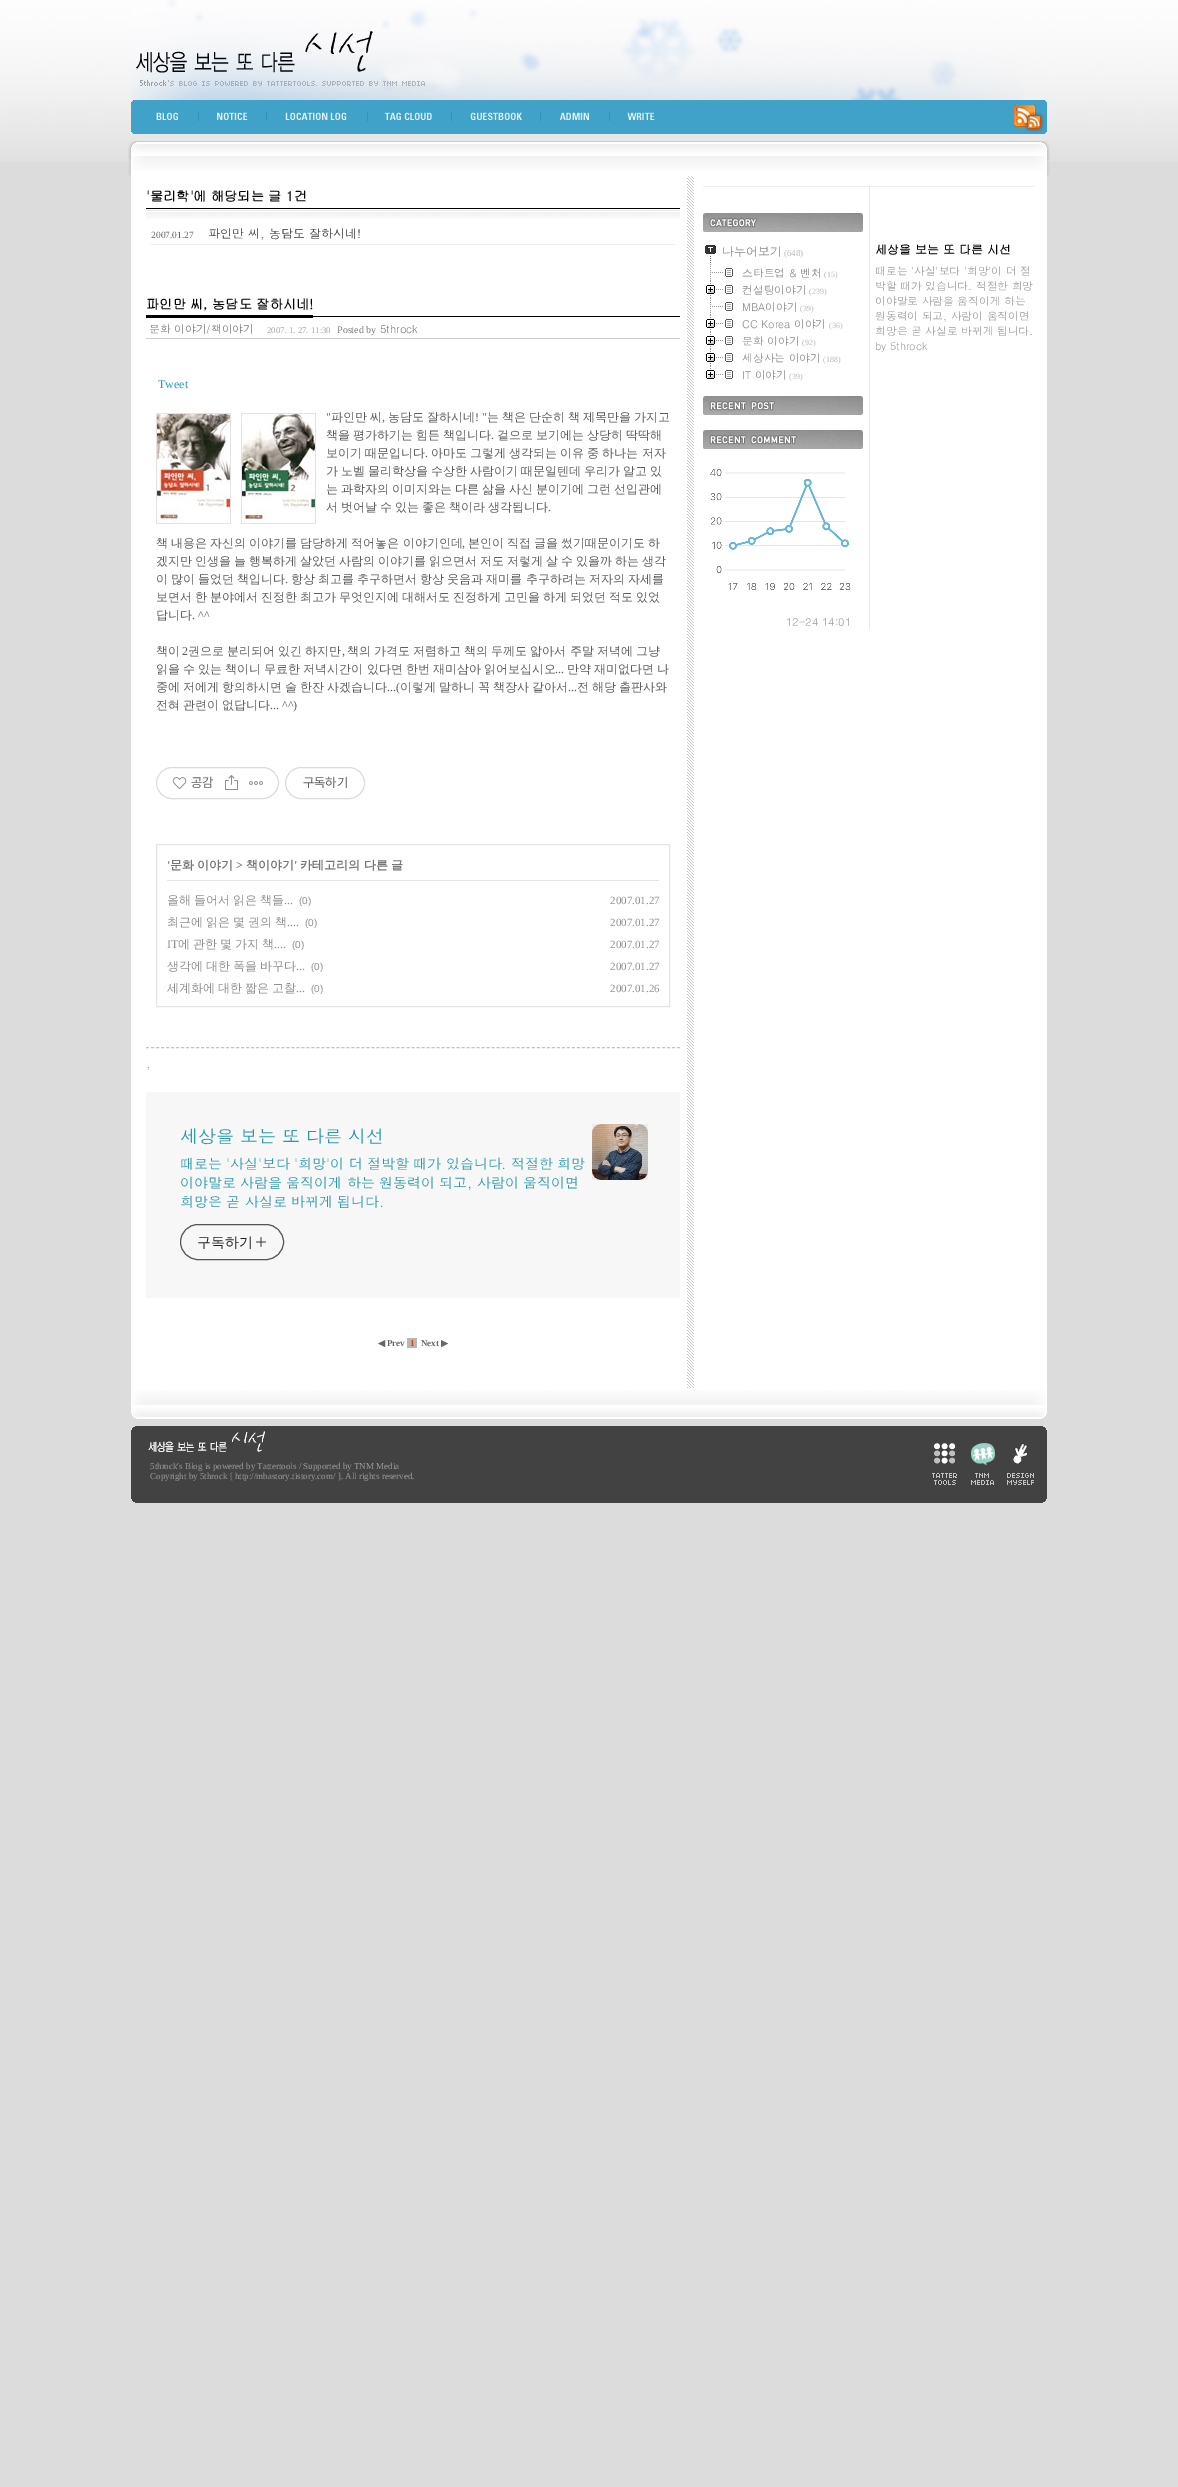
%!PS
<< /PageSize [1178 2487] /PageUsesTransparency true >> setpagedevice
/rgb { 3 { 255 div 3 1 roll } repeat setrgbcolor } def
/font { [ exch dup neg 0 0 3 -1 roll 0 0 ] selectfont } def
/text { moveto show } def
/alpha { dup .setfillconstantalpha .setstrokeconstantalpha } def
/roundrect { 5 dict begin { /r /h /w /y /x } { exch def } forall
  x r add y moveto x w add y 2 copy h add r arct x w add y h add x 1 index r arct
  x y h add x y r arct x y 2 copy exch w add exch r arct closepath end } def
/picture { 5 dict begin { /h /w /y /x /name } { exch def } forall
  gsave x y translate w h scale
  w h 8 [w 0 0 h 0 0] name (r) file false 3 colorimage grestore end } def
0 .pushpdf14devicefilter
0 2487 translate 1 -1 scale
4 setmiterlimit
220 220 220 rgb
0 0 1178 2487 rectfill
(img_01.rgb) 0 0 1178 162 picture
(img_02.rgb) 131 0 892 100 picture
(img_03.rgb) 131 100 916 34 picture
(img_04.rgb) 128 141 461 35 picture
(img_05.rgb) 589 141 461 35 picture
255 255 255 rgb
131 176 916 1212 rectfill
(img_06.rgb) 687 176 7 1212 picture
0 0 0 rgb
146 208 534 1 rectfill
(img_07.rgb) 146 210 534 9 picture
238 238 238 rgb
151 244 524 1 rectfill
0 0 0 rgb
313 316 367 1 rectfill
146 315 167 3 rectfill
204 204 204 rgb
146 338 534 1 rectfill
(img_08.rgb) 156 413 75 111 picture
(img_09.rgb) 241 413 75 111 picture
220 220 220 rgb
156.5 767.5 122 31 15.5 roundrect stroke
(img_10.rgb) 172 777 15 12 picture
(img_11.rgb) 225 775 13 15 picture
(img_12.rgb) 249 781 14 4 picture
285.5 767.5 79 31 15.5 roundrect stroke
229 229 229 rgb
156.5 844.5 513 162 rectstroke
167 880 492 1 rectfill
196 196 196 rgb
[3 2.01] 0 setdash
146 1047.5 moveto 534 0 rlineto stroke
247 247 247 rgb
146 1092 534 206 rectfill
85 85 85 rgb
[] 0 setdash
180.5 1224.5 103 35 17.5 roundrect stroke
(img_13.rgb) 256 1237 10 10 picture
(img_14.rgb) 592 1124 56 56 picture
0.04 alpha
0 0 0 rgb
592 1124 56 56 rectfill
1 alpha
183 183 183 rgb
407 1338 10 10 rectfill
229 234 227 rgb
869 187 1 442 rectfill
238 238 238 rgb
703 186 332 1 rectfill
(img_15.rgb) 703 213 160 19 picture
(img_16.rgb) 705 245 11 18 picture
(img_17.rgb) 710 264 1 17 picture
(img_18.rgb) 712 268 21 9 picture
(img_17.rgb) 710 281 1 17 picture
(img_19.rgb) 706 285 27 9 picture
(img_17.rgb) 710 298 1 17 picture
(img_18.rgb) 712 302 21 9 picture
(img_17.rgb) 710 315 1 17 picture
(img_19.rgb) 706 319 27 9 picture
(img_17.rgb) 710 332 1 17 picture
(img_19.rgb) 706 336 27 9 picture
(img_17.rgb) 710 349 1 17 picture
(img_19.rgb) 706 353 27 9 picture
(img_20.rgb) 710 366 1 3 picture
(img_19.rgb) 706 370 27 9 picture
(img_21.rgb) 703 396 160 19 picture
(img_22.rgb) 703 430 160 19 picture
(img_23.rgb) 710 469 141 121 picture
(img_24.rgb) 131 1388 458 31 picture
(img_25.rgb) 589 1388 458 31 picture
66 66 66 rgb
265 1426 778 77 rectfill
(img_26.rgb) 131 1426 134 77 picture
(img_27.rgb) 1043 1426 4 77 picture
(img_28.rgb) 932 1443 25 42 picture
(img_29.rgb) 971 1443 24 42 picture
(img_30.rgb) 1007 1443 27 42 picture
/Gulim-Bold 13.25 font
0 0 0 rgb
('물리학'에 해당되는 글 1건) 146 201 text
/LiberationSerif-Regular 9.5 font
102 102 102 rgb
(2007.01.27) 151 238 text
/Dotum-Regular 12 font
51 51 51 rgb
(파인만 씨, 농담도 잘하시네!) 208 238 text
/Gulim-Bold 13.25 font
0 0 0 rgb
(파인만 씨, 농담도 잘하시네!) 146 309 text
/Dotum-Regular 10.75 font
119 119 119 rgb
(문화 이야기/책이야기) 149 333 text
/LiberationSerif-Regular 8.75 font
170 170 170 rgb
(2007. 1. 27. 11:30) 267 333 text
/LiberationSerif-Regular 10 font
119 119 119 rgb
(Posted by) 337 333 text
/Dotum-Regular 11 font
(5throck) 380 333 text
/LiberationSerif-Regular 12 font
39 153 170 rgb
(Tweet) 158 388 text
93 93 93 rgb
(") 326 421 text
/WenQuanYiZenHei-Medium 12 font
(파인만) 331 421 text
(씨) 370 421 text
/LiberationSerif-Regular 12 font
(,) 382 421 text
/WenQuanYiZenHei-Medium 12 font
(농담도) 388 421 text
(잘하시네) 427 421 text
/LiberationSerif-Regular 12 font
(! ") 475 421 text
/WenQuanYiZenHei-Medium 12 font
(는) 487 421 text
(책은) 502 421 text
(단순히) 529 421 text
(책) 568 421 text
(제목만을) 583 421 text
(가지고) 634 421 text
326 439 moveto -0.5 0 32 (책을 평가하기는 힘든 책입니다) widthshow
/LiberationSerif-Regular 12 font
(.) 491 439 text
/WenQuanYiZenHei-Medium 12 font
497 439 moveto -0.5 0 32 (겉으로 보기에는 상당히 딱딱해) widthshow
326 457 moveto -0.5 0 32 (보이기 때문입니다) widthshow
/LiberationSerif-Regular 12 font
(.) 425 457 text
/WenQuanYiZenHei-Medium 12 font
431 457 moveto -0.5 0 32 (아마도 그렇게 생각되는 이유 중 하나는 저자) widthshow
326 475 moveto -0.6 0 32 (가 노벨 물리학상을 수상한 사람이기 때문일텐데 우리가 알고 있) widthshow
326 493 moveto -0.6 0 32 (는 과학자의 이미지와는 다른 삶을 사신 분이기에 그런 선입관에) widthshow
326 511 moveto -0.6 0 32 (서 벗어날 수 있는 좋은 책이라 생각됩니다) widthshow
/LiberationSerif-Regular 12 font
(.) 548 511 text
/WenQuanYiZenHei-Medium 12 font
156 547 moveto -0.5 0 32 (책 내용은 자신의 이야기를 담당하게 적어놓은 이야기인데) widthshow
/LiberationSerif-Regular 12 font
(,) 462 547 text
/WenQuanYiZenHei-Medium 12 font
468 547 moveto -0.5 0 32 (본인이 직접 글을 썼기때문이기도 하) widthshow
156 565 moveto -0.6 0 32 (겠지만 인생을 늘 행복하게 살았던 사람의 이야기를 읽으면서 저도 저렇게 살 수 있을까 하는 생각) widthshow
156 583 moveto -0.5 0 32 (이 많이 들었던 책입니다) widthshow
/LiberationSerif-Regular 12 font
(.) 285 583 text
/WenQuanYiZenHei-Medium 12 font
291 583 moveto -0.5 0 32 (항상 최고를 추구하면서 항상 웃음과 재미를 추구하려는 저자의 자세를) widthshow
156 601 moveto -0.6 0 32 (보면서 한 분야에서 진정한 최고가 무엇인지에 대해서도 진정하게 고민을 하게 되었던 적도 있었) widthshow
(답니다) 156 619 text
/LiberationSerif-Regular 12 font
(. ^^) 192 619 text
/WenQuanYiZenHei-Medium 12 font
(책이) 156 655 text
/LiberationSerif-Regular 12 font
(2) 182 655 text
/WenQuanYiZenHei-Medium 12 font
188 655 moveto -0.5 0 32 (권으로 분리되어 있긴 하지만) widthshow
/LiberationSerif-Regular 12 font
(,) 342 655 text
/WenQuanYiZenHei-Medium 12 font
347 655 moveto -0.5 0 32 (책의 가격도 저렴하고 책의 두께도 앏아서 주말 저녁에 그냥) widthshow
156 673 moveto -0.5 0 32 (읽을 수 있는 책이니 무료한 저녁시간이 있다면 한번 재미삼아 읽어보십시오) widthshow
/LiberationSerif-Regular 12 font
(...) 555 673 text
/WenQuanYiZenHei-Medium 12 font
567 673 moveto -0.5 0 32 (만약 재미없다면 나) widthshow
156 691 moveto -0.6 0 32 (중에 저에게 항의하시면 술 한잔 사겠습니다) widthshow
/LiberationSerif-Regular 12 font
(...\() 387 691 text
/WenQuanYiZenHei-Medium 12 font
400 691 moveto -0.6 0 32 (이렇게 말하니 꼭 책장사 같아서) widthshow
/LiberationSerif-Regular 12 font
(...) 568 691 text
/WenQuanYiZenHei-Medium 12 font
577 691 moveto -0.6 0 32 (전 해당 출판사와) widthshow
(전혀) 156 709 text
(관련이) 183 709 text
(없답니다) 222 709 text
/LiberationSerif-Regular 12 font
(... ^^\)) 270 709 text
/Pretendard-Regular 13 font
(공감) 191 787 text
(구독하기) 303 787 text
/LiberationSerif-Bold 12 font
119 119 119 rgb
(') 167 869 text
/WenQuanYiZenHei-Bold 12 font
170 869 moveto -0.6 0 32 (문화 이야기) widthshow
/LiberationSerif-Bold 12 font
(>) 236 869 text
/WenQuanYiZenHei-Bold 12 font
(책이야기) 246 869 text
/LiberationSerif-Bold 12 font
(') 294 869 text
/WenQuanYiZenHei-Bold 12 font
(카테고리의 다른 글) 300 869 text
/WenQuanYiZenHei-Medium 12 font
144 144 144 rgb
167 904 moveto -0.6 0 32 (올해 들어서 읽은 책들) widthshow
/LiberationSerif-Regular 12 font
(...) 284 904 text
/LiberationSans-Regular 10 font
(\(0\)) 299 904 text
/LiberationSerif-Regular 11 font
(2007.01.27) 610 904 text
/WenQuanYiZenHei-Medium 12 font
167 926 moveto -0.6 0 32 (최근에 읽은 몇 권의 책) widthshow
/LiberationSerif-Regular 12 font
(....) 287 926 text
/LiberationSans-Regular 10 font
(\(0\)) 305 926 text
/LiberationSerif-Regular 11 font
(2007.01.27) 610 926 text
/LiberationSerif-Regular 12 font
(IT) 167 948 text
/WenQuanYiZenHei-Medium 12 font
178 948 moveto -0.6 0 32 (에 관한 몇 가지 책) widthshow
/LiberationSerif-Regular 12 font
(....) 274 948 text
/LiberationSans-Regular 10 font
(\(0\)) 292 948 text
/LiberationSerif-Regular 11 font
(2007.01.27) 610 948 text
/WenQuanYiZenHei-Medium 12 font
167 970 moveto -0.6 0 32 (생각에 대한 폭을 바꾸다) widthshow
/LiberationSerif-Regular 12 font
(...) 296 970 text
/LiberationSans-Regular 10 font
(\(0\)) 311 970 text
/LiberationSerif-Regular 11 font
(2007.01.27) 610 970 text
/WenQuanYiZenHei-Medium 12 font
167 992 moveto -0.6 0 32 (세계화에 대한 짧은 고찰) widthshow
/LiberationSerif-Regular 12 font
(...) 296 992 text
/LiberationSans-Regular 10 font
(\(0\)) 311 992 text
/LiberationSerif-Regular 11 font
(2007.01.26) 610 992 text
/Dotum-Regular 12 font
(,) 146 1068 text
/Dotum-Regular 18 font
39 153 170 rgb
(세상을 보는 또 다른 시선) 180 1143 text
/Dotum-Regular 14 font
180 1169 moveto -0.1 0 (때로는 '사실'보다 '희망'이 더 절박할 때가 있습니다. 적절한 희망) ashow
180 1188 moveto -0.1 0 (이야말로 사람을 움직이게 하는 원동력이 되고, 사람이 움직이면) ashow
180 1207 moveto -0.1 0 (희망은 곧 사실로 바뀌게 됩니다.) ashow
/WenQuanYiZenHei-Medium 14 font
34 34 34 rgb
(구독하기) 197 1247 text
/DejaVuSans-Bold 9 font
102 102 102 rgb
(◀) 378 1346 text
/LiberationSerif-Bold 9 font
(Prev) 387 1346 text
255 51 0 rgb
(1) 410 1346 text
102 102 102 rgb
(Next) 421 1346 text
/DejaVuSans-Bold 9 font
(▶) 441 1346 text
/Dotum-Regular 12 font
135 135 135 rgb
(나누어보기) 722 256 text
/LiberationSerif-Regular 9 font
187 187 187 rgb
(\(648\)) 784 256 text
/Dotum-Regular 10.75 font
135 135 135 rgb
(스타트업 & 벤처) 742 277 text
/LiberationSerif-Regular 8 font
187 187 187 rgb
(\(15\)) 824 277 text
/Dotum-Regular 10.75 font
135 135 135 rgb
(컨설팅이야기) 742 294 text
/LiberationSerif-Regular 8 font
187 187 187 rgb
(\(239\)) 809 294 text
/Dotum-Regular 10.75 font
135 135 135 rgb
(MBA이야기) 742 311 text
/LiberationSerif-Regular 8 font
187 187 187 rgb
(\(39\)) 800 311 text
/Dotum-Regular 10.75 font
135 135 135 rgb
(CC Korea 이야기) 742 328 text
/LiberationSerif-Regular 8 font
187 187 187 rgb
(\(36\)) 829 328 text
/Dotum-Regular 10.75 font
135 135 135 rgb
(문화 이야기) 742 345 text
/LiberationSerif-Regular 8 font
187 187 187 rgb
(\(92\)) 802 345 text
/Dotum-Regular 10.75 font
135 135 135 rgb
(세상사는 이야기) 742 362 text
/LiberationSerif-Regular 8 font
187 187 187 rgb
(\(188\)) 823 362 text
/Dotum-Regular 10.75 font
135 135 135 rgb
(IT 이야기) 742 379 text
/LiberationSerif-Regular 8 font
187 187 187 rgb
(\(39\)) 789 379 text
/Dotum-Regular 11 font
153 153 153 rgb
(12-24 14:01) 786 626 text
/Gulim-Bold 12 font
0 0 0 rgb
(세상을 보는 또 다른 시선) 875 254 text
/Dotum-Regular 10.75 font
153 153 153 rgb
(때로는 '사실'보다 '희망'이 더 절) 875 275 text
(박할 때가 있습니다. 적절한 희망) 875 290 text
(이야말로 사람을 움직이게 하는) 875 305 text
(원동력이 되고, 사람이 움직이면) 875 320 text
(희망은 곧 사실로 바뀌게 됩니다.) 875 335 text
(by 5throck) 875 350 text
/LiberationSerif-Regular 9 font
(5throck's Blog is powered by Tattertools / Supported by TNM Media) 150 1469 text
(Copyright by 5throck [ http://mbastory.tistory.com/ ]. All rights reserved.) 150 1479 text
.poppdf14devicefilter showpage
